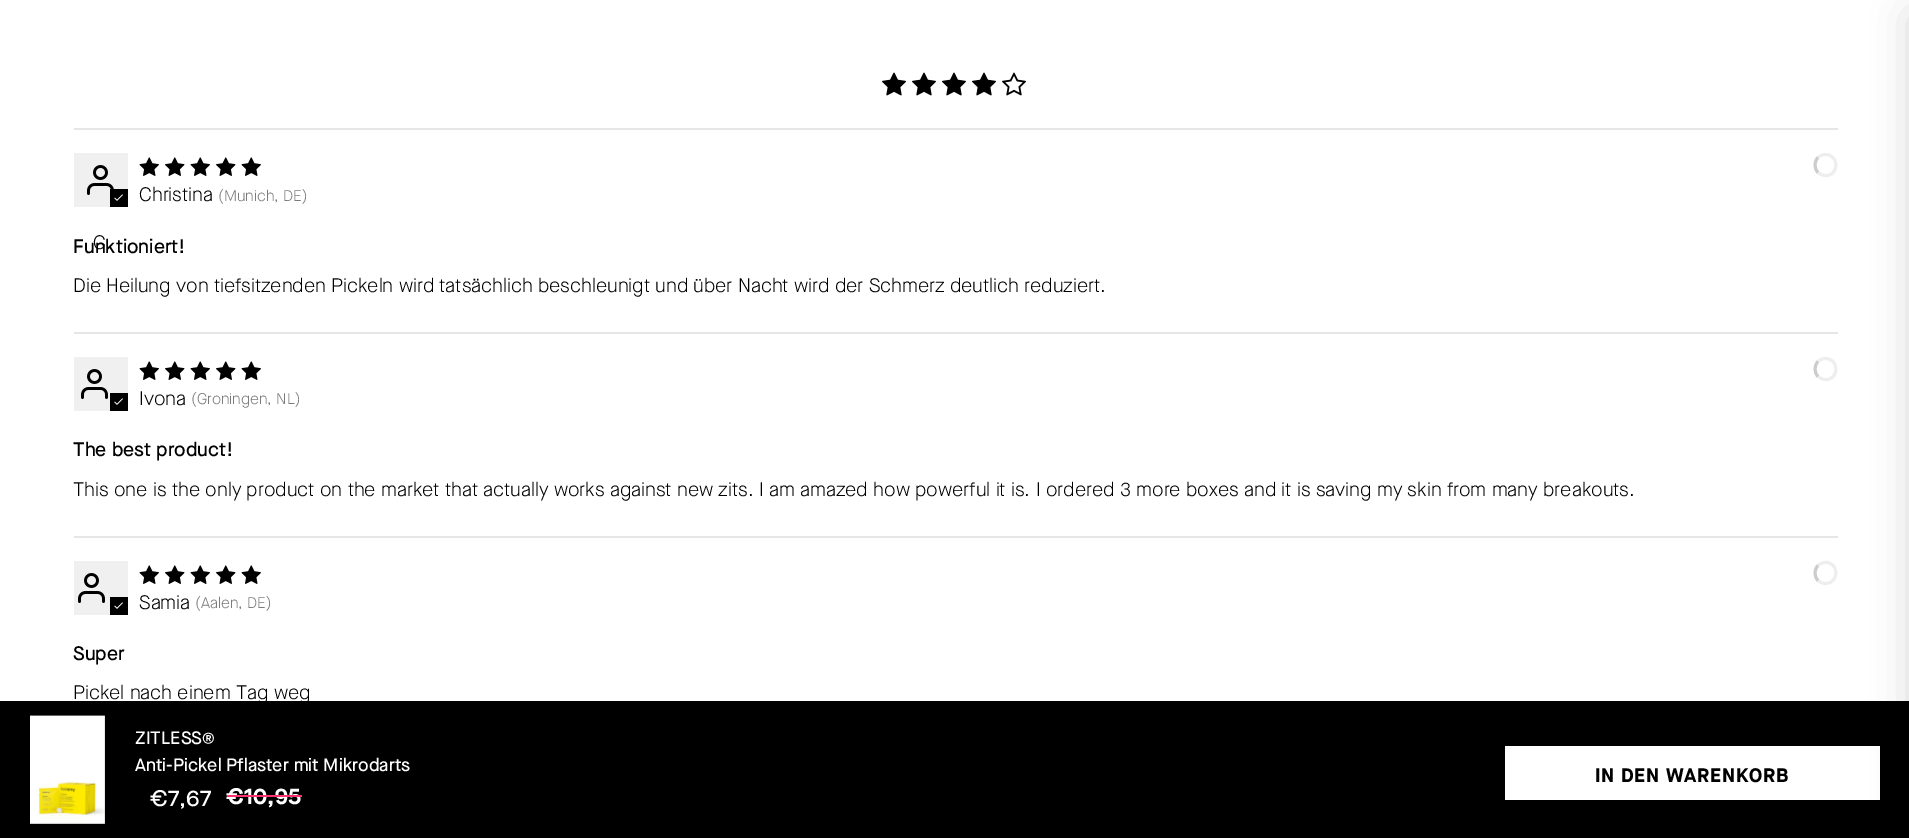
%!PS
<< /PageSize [1909 838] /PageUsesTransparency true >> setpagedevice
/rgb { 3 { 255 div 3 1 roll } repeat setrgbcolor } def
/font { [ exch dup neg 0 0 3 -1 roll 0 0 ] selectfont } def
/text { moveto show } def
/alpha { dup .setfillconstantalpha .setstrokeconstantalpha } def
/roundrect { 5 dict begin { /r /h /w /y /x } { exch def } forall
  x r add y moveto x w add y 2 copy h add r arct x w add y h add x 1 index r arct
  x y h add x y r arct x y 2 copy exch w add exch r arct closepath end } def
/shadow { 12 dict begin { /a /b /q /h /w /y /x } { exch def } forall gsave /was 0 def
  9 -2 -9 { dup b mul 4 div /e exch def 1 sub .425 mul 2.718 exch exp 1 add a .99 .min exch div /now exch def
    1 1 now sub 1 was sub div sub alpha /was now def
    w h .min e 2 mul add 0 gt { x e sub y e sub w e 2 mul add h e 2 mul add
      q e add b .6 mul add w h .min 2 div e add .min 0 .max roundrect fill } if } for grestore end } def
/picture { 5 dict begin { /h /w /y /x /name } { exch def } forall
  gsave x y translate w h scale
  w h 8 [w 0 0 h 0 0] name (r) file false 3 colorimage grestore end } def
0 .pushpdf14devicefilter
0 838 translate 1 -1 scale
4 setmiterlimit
255 255 255 rgb
0 0 1909 838 rectfill
(img_01.rgb) 882 72 24 24 picture
(img_01.rgb) 912 72 24 24 picture
(img_01.rgb) 942 72 24 24 picture
(img_01.rgb) 972 72 24 24 picture
(img_02.rgb) 1002 72 24 24 picture
230 230 230 rgb
74 128 1764 2 rectfill
(img_03.rgb) 139 157 20 19 picture
(img_04.rgb) 165 157 20 19 picture
(img_03.rgb) 190 157 20 19 picture
(img_04.rgb) 216 157 20 19 picture
(img_03.rgb) 241 157 20 19 picture
238 238 238 rgb
3 setlinewidth
1818 157.5 moveto 2 -2 4.5 -3 7.5 -3 rcurveto 12.5 0 14.5 18.5 2 21 rcurveto -3.5 0.5 -7 -0.5 -9.5 -3 rcurveto stroke
204 204 204 rgb
1818 172.5 moveto -4 -4 -4 -11 0 -15 rcurveto stroke
240 240 240 rgb
74 153 54 54 rectfill
(img_05.rgb) 87 165 27 30 picture
0 0 0 rgb
110 189 18 18 rectfill
(img_06.rgb) 114 194 9 7 picture
230 230 230 rgb
74 332 1764 2 rectfill
240 240 240 rgb
74 357 54 54 rectfill
(img_05.rgb) 81 369 27 30 picture
0 0 0 rgb
110 393 18 18 rectfill
(img_06.rgb) 114 398 9 7 picture
(img_03.rgb) 139 361 20 19 picture
(img_04.rgb) 165 361 20 19 picture
(img_03.rgb) 190 361 20 19 picture
(img_04.rgb) 216 361 20 19 picture
(img_03.rgb) 241 361 20 19 picture
238 238 238 rgb
1818 361.5 moveto 2 -2 4.5 -3 7.5 -3 rcurveto 12.5 0 14.5 18.5 2 21 rcurveto -3.5 0.5 -7 -0.5 -9.5 -3 rcurveto stroke
204 204 204 rgb
1818 376.5 moveto -4 -4 -4 -11 0 -15 rcurveto stroke
230 230 230 rgb
74 536 1764 2 rectfill
240 240 240 rgb
74 561 54 54 rectfill
(img_05.rgb) 78 573 27 30 picture
0 0 0 rgb
110 597 18 18 rectfill
(img_06.rgb) 114 602 9 7 picture
(img_03.rgb) 139 565 20 19 picture
(img_04.rgb) 165 565 20 19 picture
(img_03.rgb) 190 565 20 19 picture
(img_04.rgb) 216 565 20 19 picture
(img_03.rgb) 241 565 20 19 picture
238 238 238 rgb
1818 565.5 moveto 2.5 -2.5 6 -3.5 9.5 -3 rcurveto 12.5 2.5 10.5 21 -2 21 rcurveto -3 0 -5.5 -1 -7.5 -3 rcurveto stroke
204 204 204 rgb
1818 580.5 moveto -4 -4 -4 -11 0 -15 rcurveto stroke
0 0 0 rgb
0 701 1909 137 rectfill
(img_07.rgb) 30 715 75 109 picture
255 255 255 rgb
1505 746 375 54 rectfill
0 0 0 rgb
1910 15 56 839 0 19 0.15 shadow
/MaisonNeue-Light 19.5 font
(Christina) 139 201 text
/MaisonNeue-Light 15.5 font
123 123 123 rgb
(\(Munich, DE\)) 218 201 text
/MaisonNeue-Medium 19.5 font
0 0 0 rgb
(Funktioniert!) 73 253 text
/MaisonNeue-Light 19.5 font
(C) 93 249 text
(Die Heilung von tiefsitzenden Pickeln wird tatsächlich beschleunigt und über Nacht wird der Schmerz deutlich reduziert.) 73 292 text
(Ivona) 139 405 text
/MaisonNeue-Light 15.5 font
123 123 123 rgb
(\(Groningen, NL\)) 191 404 text
/MaisonNeue-Medium 19.5 font
0 0 0 rgb
(The best product!) 73 456 text
/MaisonNeue-Light 19.5 font
(This one is the only product on the market that actually works against new zits. I am amazed how powerful it is. I ordered 3 more boxes and it is saving my skin from many breakouts.) 73 496 text
(Samia) 139 609 text
/MaisonNeue-Light 15.5 font
123 123 123 rgb
(\(Aalen, DE\)) 195 608 text
/MaisonNeue-Medium 19.5 font
0 0 0 rgb
(Super) 73 660 text
/MaisonNeue-Light 19.5 font
(Pickel nach einem Tag weg) 73 699 text
/MaisonNeue-Medium 18 font
255 255 255 rgb
(ZITLESS®) 135 744 text
(Anti-Pickel Pflaster mit Mikrodarts) 135 771 text
/MaisonNeue-Medium 22.5 font
(€7,67) 150 806 text
/MaisonNeue-Bold 22.5 font
(€10,95) 226 804 text
254 50 109 rgb
227 795 75 2 rectfill
/MaisonNeue-Bold 19.5 font
0 0 0 rgb
1595 782 moveto 0.75 0 (IN DEN WARENKORB) ashow
.poppdf14devicefilter showpage
